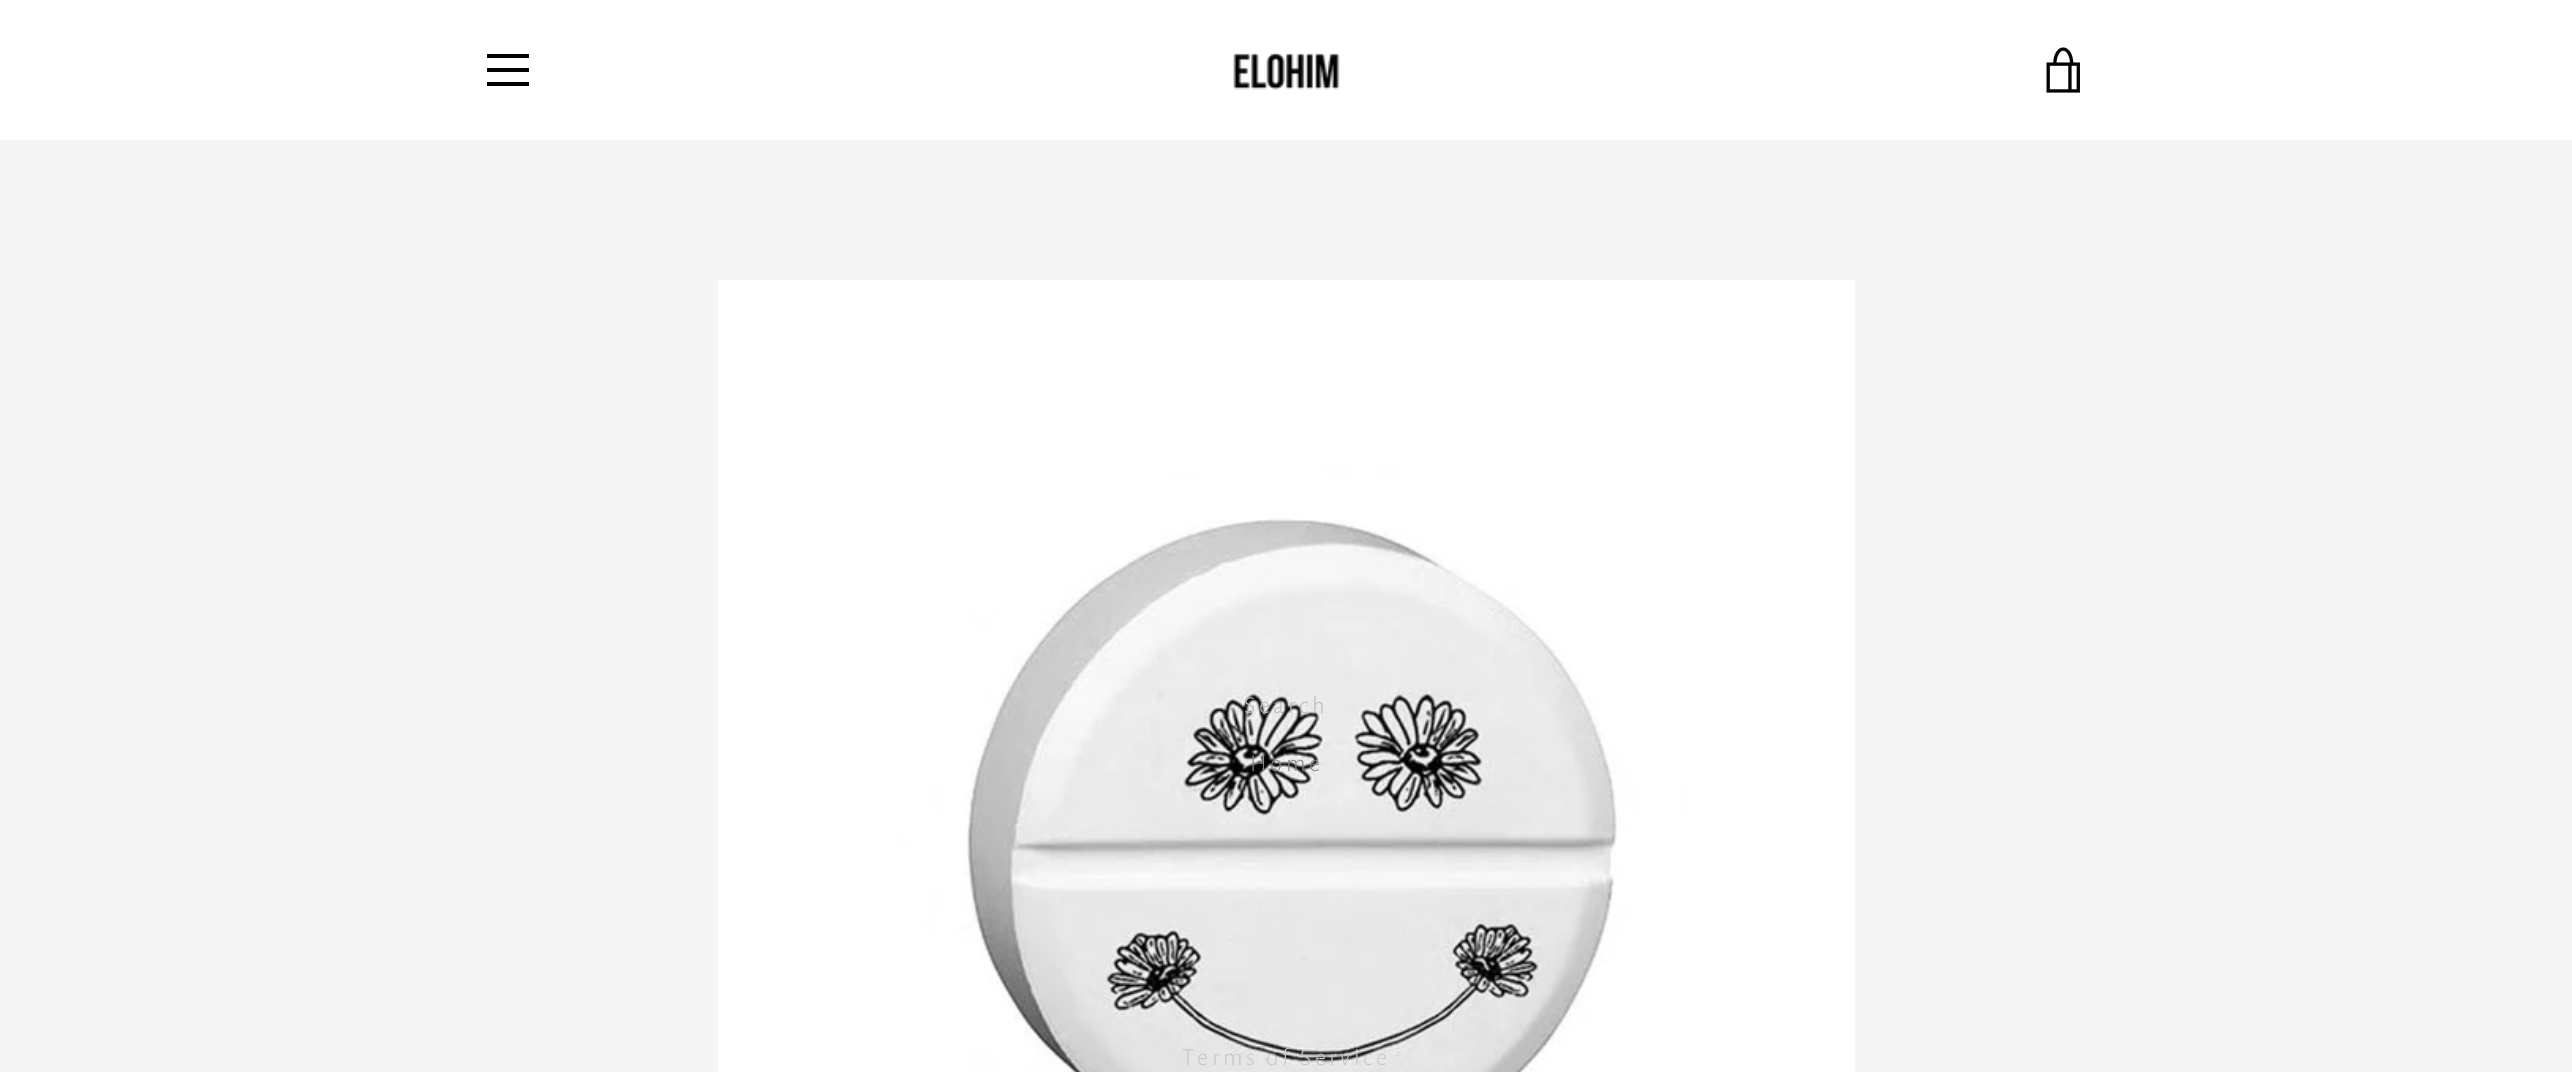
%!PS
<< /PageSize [2572 1072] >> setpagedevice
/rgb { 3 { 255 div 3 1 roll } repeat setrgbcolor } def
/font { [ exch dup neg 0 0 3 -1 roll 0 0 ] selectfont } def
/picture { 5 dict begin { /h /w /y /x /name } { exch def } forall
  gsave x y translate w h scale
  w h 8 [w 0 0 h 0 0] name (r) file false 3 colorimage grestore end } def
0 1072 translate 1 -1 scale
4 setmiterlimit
245 245 245 rgb
0 0 2572 1072 rectfill
(img_01.rgb) 718 280 1137 792 picture
255 255 255 rgb
0 0 2572 140 rectfill
(img_02.rgb) 1233 52 107 38 picture
(img_03.rgb) 2046 47 34 46 picture
3 3 3 rgb
487 54 42 4 rectfill
487 68 42 4 rectfill
487 82 42 4 rectfill
/AlegreyaSans-Light 24.5 font
187 187 187 rgb
1244 713 moveto 3.5 0 (Search) ashow
136 136 136 rgb
1250 771 moveto 3.5 0 (Home) ashow
198 198 198 rgb
1182 1065 moveto 3.5 0 (Terms of Service) ashow
showpage
